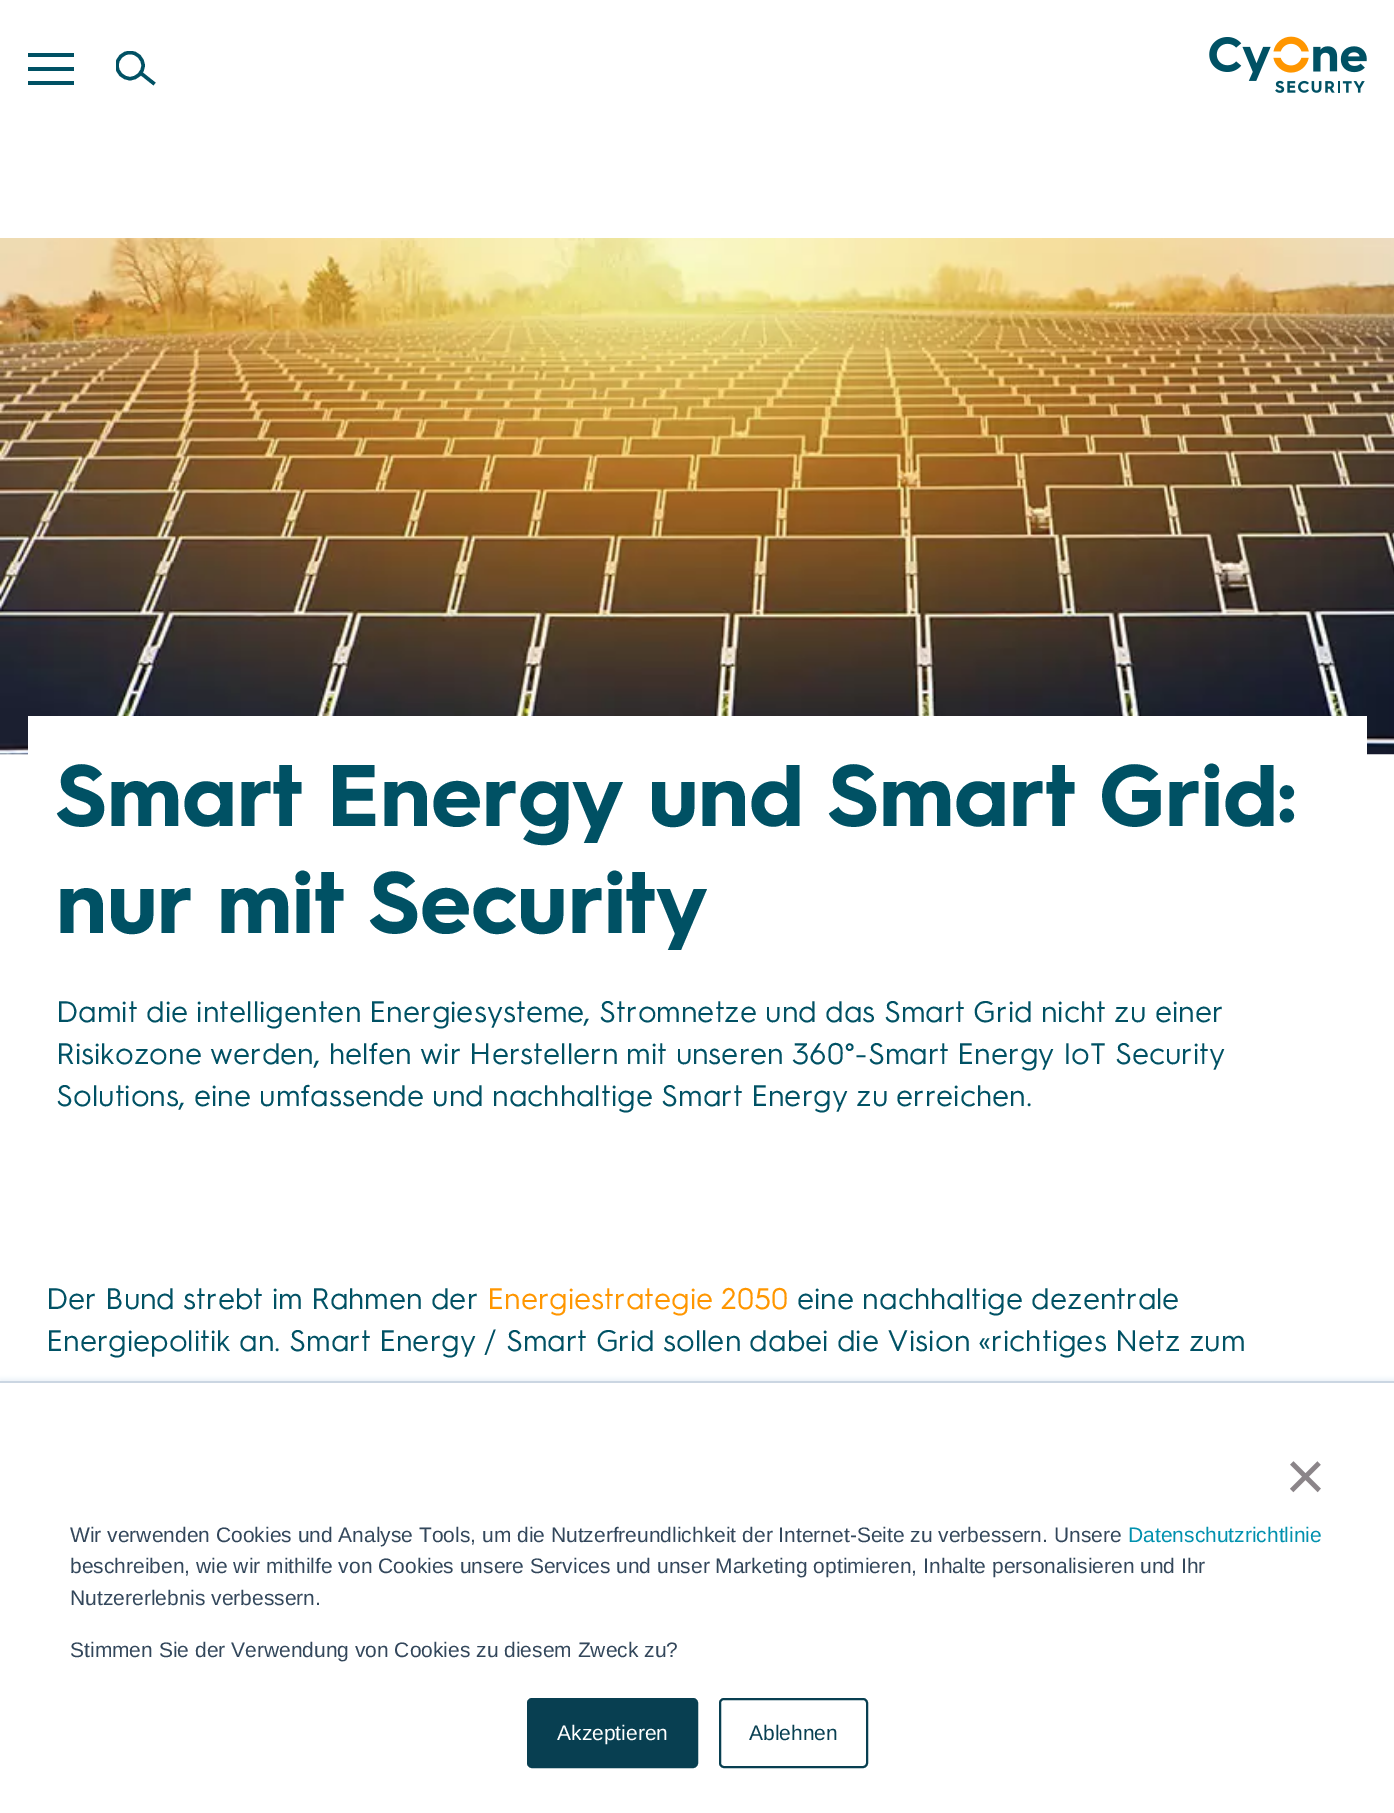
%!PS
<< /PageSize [1394 1813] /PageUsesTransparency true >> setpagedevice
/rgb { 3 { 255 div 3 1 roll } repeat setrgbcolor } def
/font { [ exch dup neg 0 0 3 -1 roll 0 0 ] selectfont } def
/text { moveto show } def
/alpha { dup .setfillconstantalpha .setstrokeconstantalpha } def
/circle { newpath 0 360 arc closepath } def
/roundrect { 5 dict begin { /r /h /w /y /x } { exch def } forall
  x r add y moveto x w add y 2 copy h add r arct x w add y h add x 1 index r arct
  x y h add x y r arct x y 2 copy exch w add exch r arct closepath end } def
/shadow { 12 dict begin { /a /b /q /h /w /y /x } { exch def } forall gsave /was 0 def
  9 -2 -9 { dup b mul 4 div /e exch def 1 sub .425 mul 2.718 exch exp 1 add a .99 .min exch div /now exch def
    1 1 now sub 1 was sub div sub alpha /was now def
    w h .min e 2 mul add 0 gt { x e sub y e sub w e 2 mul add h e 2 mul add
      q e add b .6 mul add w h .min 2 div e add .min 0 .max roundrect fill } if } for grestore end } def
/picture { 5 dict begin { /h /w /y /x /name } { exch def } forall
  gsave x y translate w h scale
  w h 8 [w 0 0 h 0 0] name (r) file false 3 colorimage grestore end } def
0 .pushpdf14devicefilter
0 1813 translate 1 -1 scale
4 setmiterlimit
255 255 255 rgb
0 0 1394 1813 rectfill
0 81 100 rgb
28 53 46 4 rectfill
28 67 46 4 rectfill
28 81 46 4 rectfill
gsave
116 51 40 35 rectclip
3.4 setlinewidth
130 65.5 13 circle stroke
grestore
3.4 setlinewidth
140 72.5 moveto 14.5 11.5 rlineto stroke
(img_01.rgb) 1209 36 158 57 picture
(img_02.rgb) 0 238 1394 517 picture
255 255 255 rgb
28 716 1339 39 rectfill
234 240 246 rgb
0 1379 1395 432 0 2.5 1 shadow
255 255 255 rgb
0 1383 1394 430 rectfill
203 214 226 rgb
0 1381 1394 2 rectfill
8 63 81 rgb
528 1699 169 68 4 roundrect gsave fill grestore
2 setlinewidth
stroke
720 1699 147 68 4 roundrect stroke
/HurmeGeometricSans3-Bold 87.5 font
0 81 100 rgb
(Smart Energy und Smart Grid:) 56 826 text
(nur mit Security) 56 933 text
/HurmeGeometricSans3-Regular 29.75 font
(Damit die intelligenten Energiesysteme, Stromnetze und das Smart Grid nicht zu einer) 56 1022 text
(Risikozone werden, helfen wir Herstellern mit unseren 360°-Smart Energy IoT Security) 56 1064 text
(Solutions, eine umfassende und nachhaltige Smart Energy zu erreichen.) 56 1106 text
(Der Bund strebt im Rahmen der) 46 1309 text
255 150 0 rgb
(Energiestrategie 2050) 487 1309 text
0 81 100 rgb
(eine nachhaltige dezentrale) 797 1309 text
(Energiepolitik an. Smart Energy / Smart Grid sollen dabei die Vision «richtiges Netz zum) 46 1351 text
/LiberationSans-Regular 70 font
139 133 137 rgb
(×) 1285 1500 text
/LiberationSans-Regular 21 font
51 71 91 rgb
(Wir verwenden Cookies und Analyse Tools, um die Nutzerfreundlichkeit der Internet-Seite zu verbessern. Unsere) 70 1542 text
0 145 174 rgb
(Datenschutzrichtlinie) 1128 1542 text
51 71 91 rgb
(beschreiben, wie wir mithilfe von Cookies unsere Services und unser Marketing optimieren, Inhalte personalisieren und Ihr) 70 1573 text
(Nutzererlebnis verbessern.) 70 1605 text
(Stimmen Sie der Verwendung von Cookies zu diesem Zweck zu?) 70 1657 text
255 255 255 rgb
(Akzeptieren) 557 1740 text
8 63 81 rgb
(Ablehnen) 749 1740 text
.poppdf14devicefilter showpage
